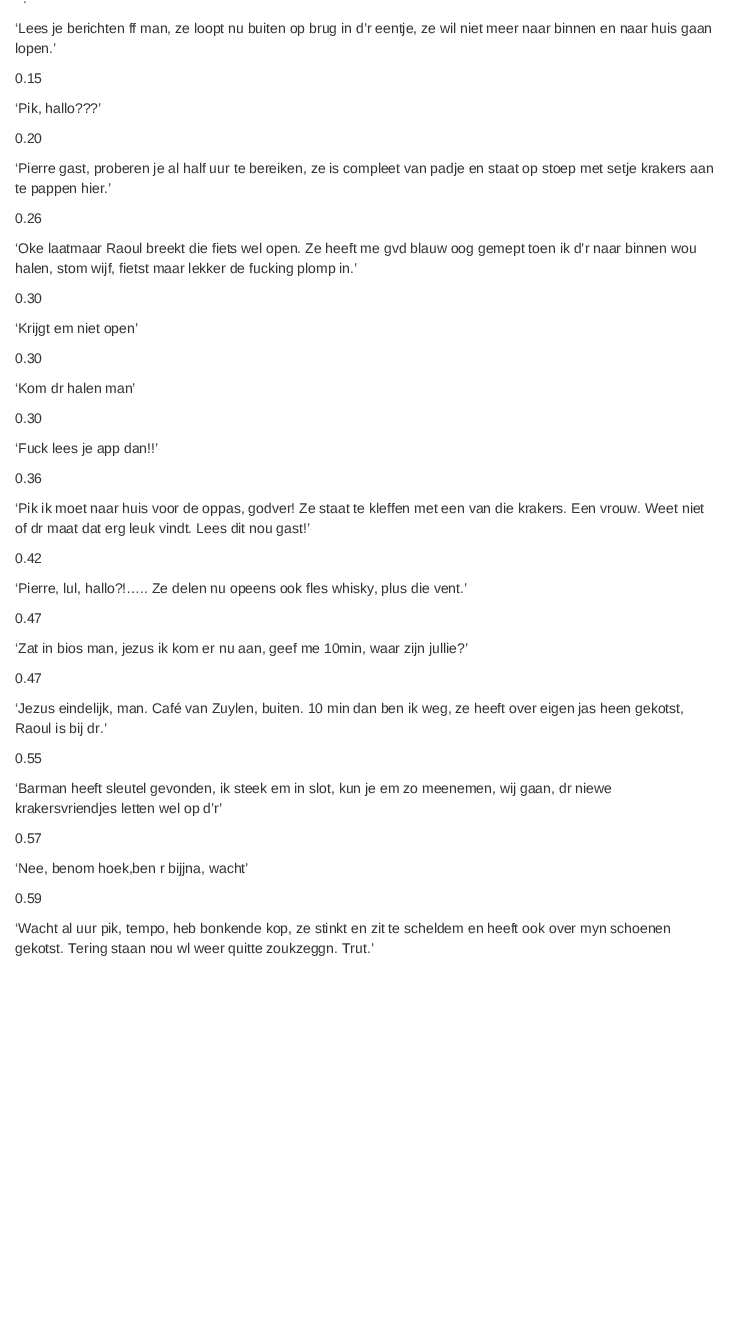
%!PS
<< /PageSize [732 1331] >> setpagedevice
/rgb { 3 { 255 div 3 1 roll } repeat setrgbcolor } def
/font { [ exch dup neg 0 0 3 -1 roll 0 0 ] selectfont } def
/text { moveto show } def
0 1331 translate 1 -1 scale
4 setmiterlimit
255 255 255 rgb
0 0 732 1331 rectfill
/LiberationSans-Regular 14 font
51 51 51 rgb
(.) 23 3 text
(‘Lees je berichten ff man, ze loopt nu buiten op brug in d’r eentje, ze wil niet meer naar binnen en naar huis gaan) 15 33 text
(lopen.’) 15 53 text
(0.15) 15 83 text
(‘Pik, hallo???’) 15 113 text
(0.20) 15 143 text
(‘Pierre gast, proberen je al half uur te bereiken, ze is compleet van padje en staat op stoep met setje krakers aan) 15 173 text
(te pappen hier.’) 15 193 text
(0.26) 15 223 text
(‘Oke laatmaar Raoul breekt die fiets wel open. Ze heeft me gvd blauw oog gemept toen ik d’r naar binnen wou) 15 253 text
(halen, stom wijf, fietst maar lekker de fucking plomp in.’) 15 273 text
(0.30) 15 303 text
(‘Krijgt em niet open’) 15 333 text
(0.30) 15 363 text
(‘Kom dr halen man’) 15 393 text
(0.30) 15 423 text
(‘Fuck lees je app dan!!’) 15 453 text
(0.36) 15 483 text
(‘Pik ik moet naar huis voor de oppas, godver! Ze staat te kleffen met een van die krakers. Een vrouw. Weet niet) 15 513 text
(of dr maat dat erg leuk vindt. Lees dit nou gast!’) 15 533 text
(0.42) 15 563 text
(‘Pierre, lul, hallo?!….. Ze delen nu opeens ook fles whisky, plus die vent.’) 15 593 text
(0.47) 15 623 text
(‘Zat in bios man, jezus ik kom er nu aan, geef me 10min, waar zijn jullie?’) 15 653 text
(0.47) 15 683 text
(‘Jezus eindelijk, man. Café van Zuylen, buiten. 10 min dan ben ik weg, ze heeft over eigen jas heen gekotst,) 15 713 text
(Raoul is bij dr.’) 15 733 text
(0.55) 15 763 text
(‘Barman heeft sleutel gevonden, ik steek em in slot, kun je em zo meenemen, wij gaan, dr niewe) 15 793 text
(krakersvriendjes letten wel op d’r’) 15 813 text
(0.57) 15 843 text
(‘Nee, benom hoek,ben r bijjna, wacht’) 15 873 text
(0.59) 15 903 text
(‘Wacht al uur pik, tempo, heb bonkende kop, ze stinkt en zit te scheldem en heeft ook over myn schoenen) 15 933 text
(gekotst. Tering staan nou wl weer quitte zoukzeggn. Trut.’) 15 953 text
showpage
